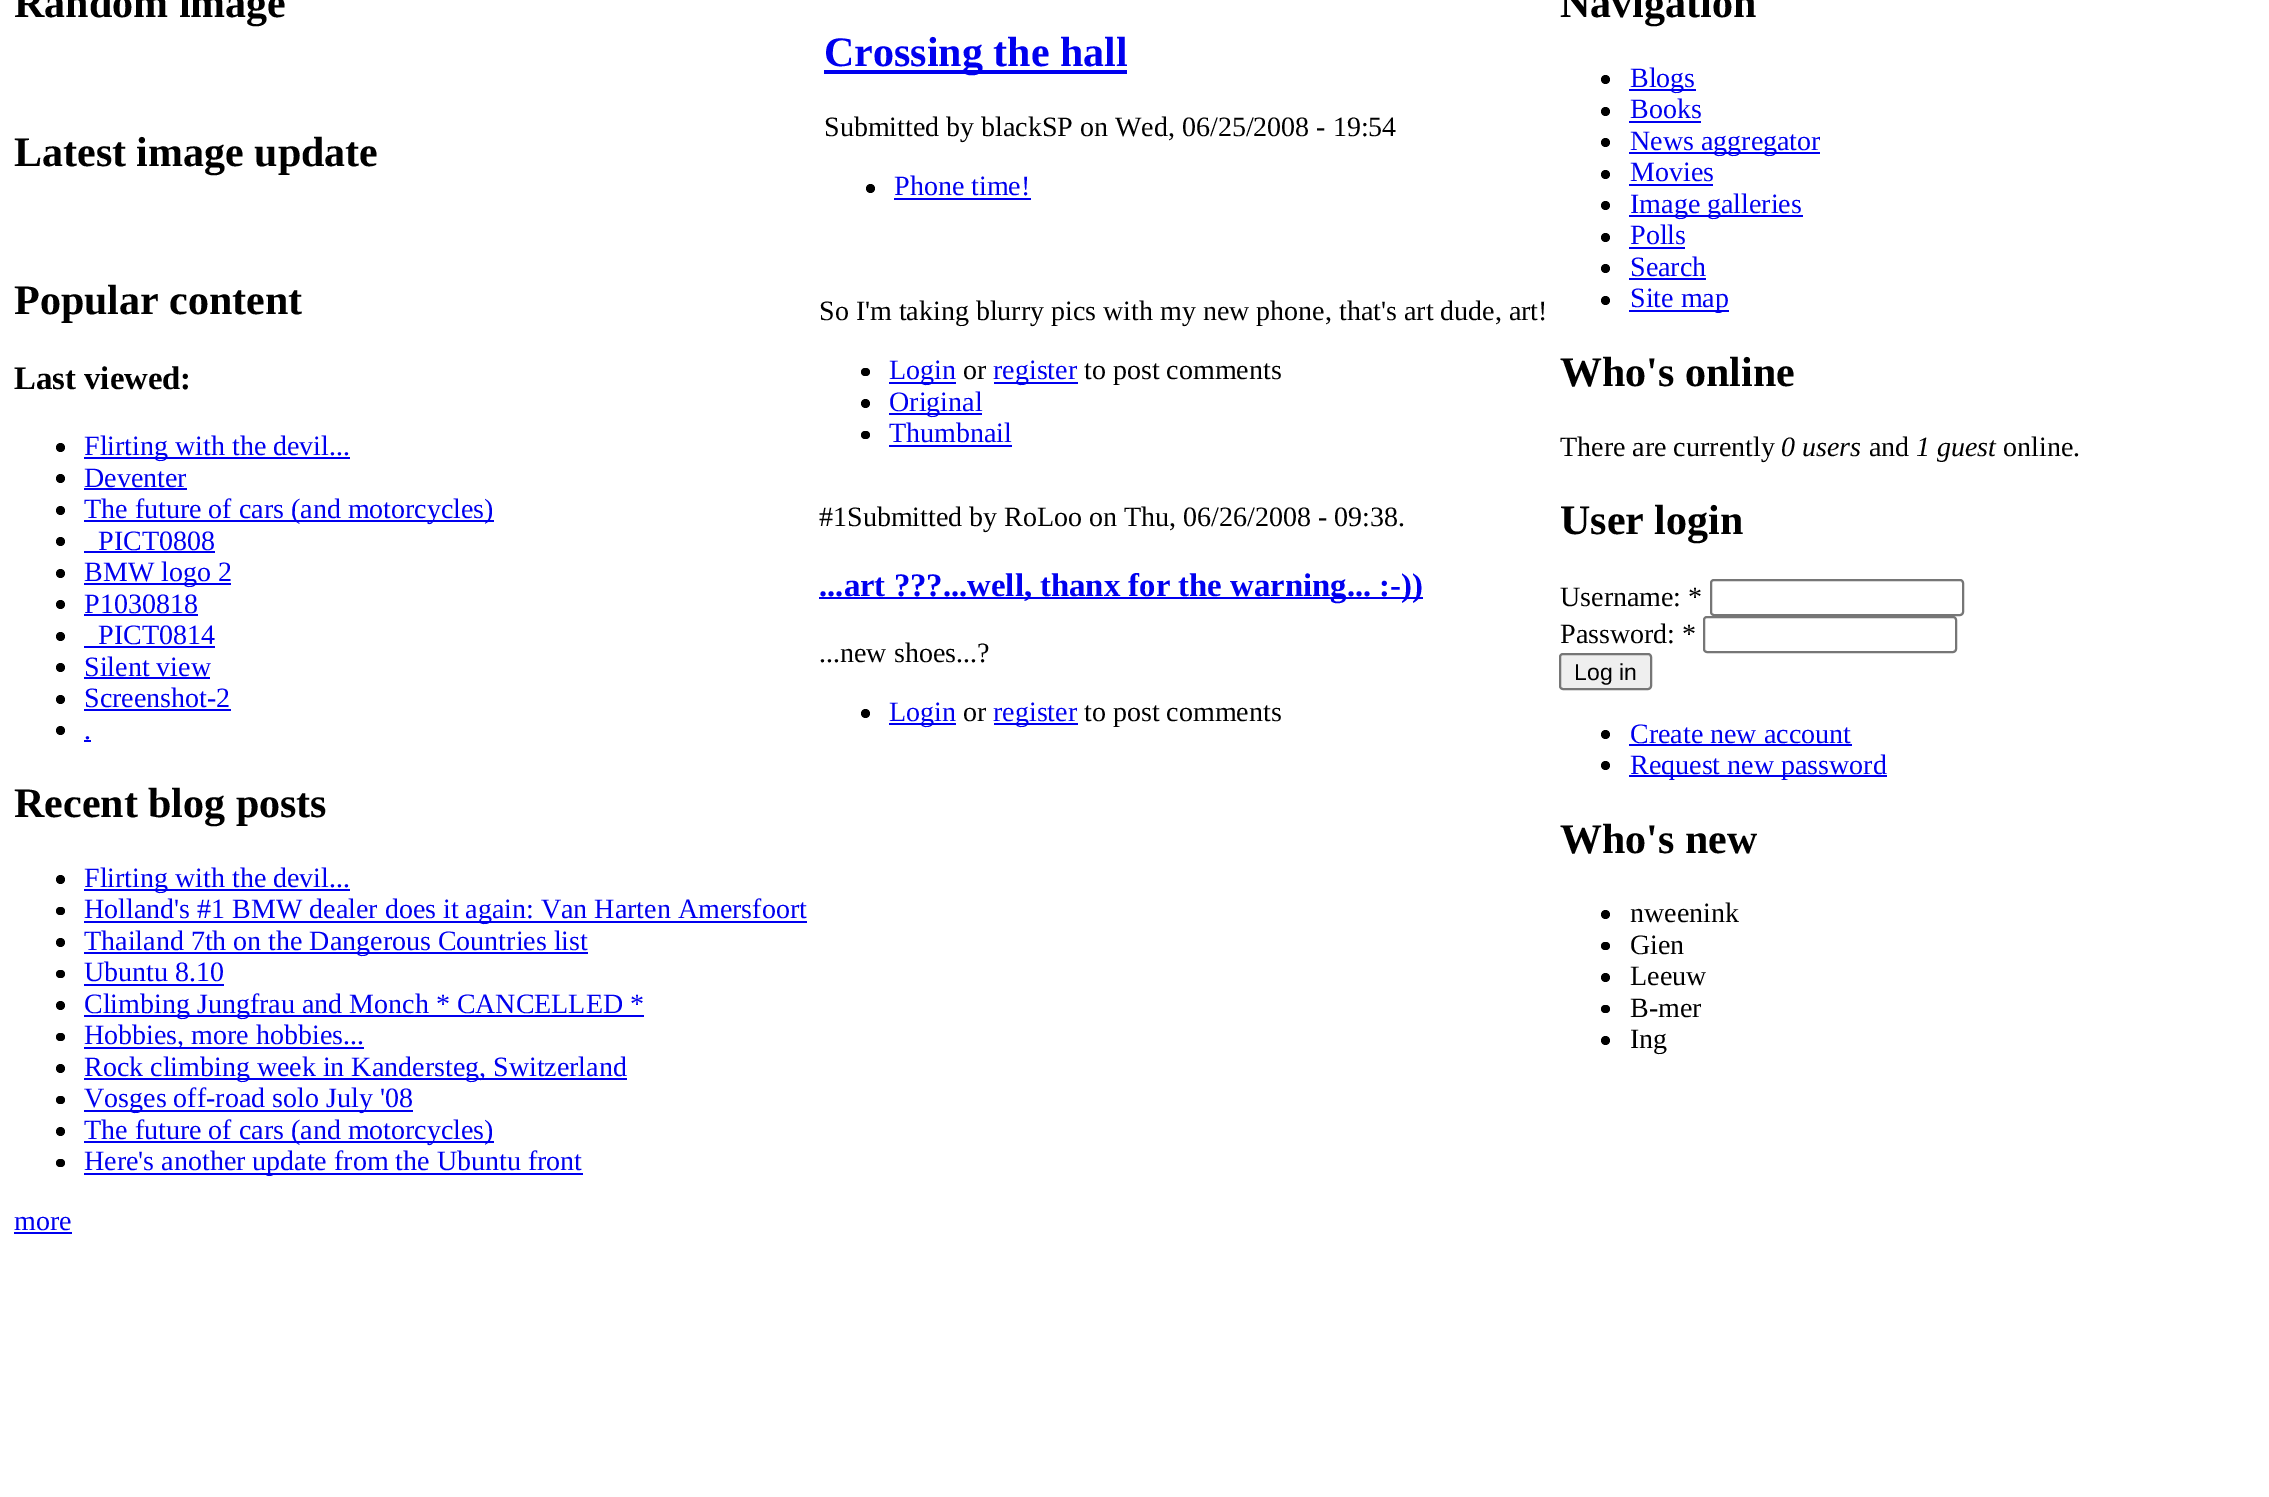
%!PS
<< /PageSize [2269 1497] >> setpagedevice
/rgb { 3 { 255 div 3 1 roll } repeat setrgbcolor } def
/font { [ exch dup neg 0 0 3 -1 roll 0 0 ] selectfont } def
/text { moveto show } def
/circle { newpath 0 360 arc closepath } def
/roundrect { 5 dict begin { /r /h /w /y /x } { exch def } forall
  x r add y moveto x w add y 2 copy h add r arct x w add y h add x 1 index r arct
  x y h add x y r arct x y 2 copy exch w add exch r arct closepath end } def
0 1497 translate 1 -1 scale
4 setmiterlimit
255 255 255 rgb
0 0 2269 1497 rectfill
0 0 0 rgb
60.5 447.5 4.5 circle fill
0 0 238 rgb
84 457 266 2 rectfill
0 0 0 rgb
60.5 478.5 4.5 circle fill
0 0 238 rgb
84 488 103 2 rectfill
0 0 0 rgb
60.5 510.5 4.5 circle fill
0 0 238 rgb
84 520 410 2 rectfill
0 0 0 rgb
60.5 541.5 4.5 circle fill
0 0 238 rgb
84 551 131 2 rectfill
0 0 0 rgb
60.5 573.5 4.5 circle fill
0 0 238 rgb
84 583 147 2 rectfill
0 0 0 rgb
60.5 604.5 4.5 circle fill
0 0 238 rgb
84 614 114 2 rectfill
0 0 0 rgb
60.5 636.5 4.5 circle fill
0 0 238 rgb
84 646 131 2 rectfill
0 0 0 rgb
60.5 667.5 4.5 circle fill
0 0 238 rgb
84 677 126 2 rectfill
0 0 0 rgb
60.5 699.5 4.5 circle fill
0 0 238 rgb
84 709 147 2 rectfill
0 0 0 rgb
60.5 730.5 4.5 circle fill
0 0 238 rgb
84 740 7 2 rectfill
0 0 0 rgb
60.5 879.5 4.5 circle fill
0 0 238 rgb
84 889 266 2 rectfill
0 0 0 rgb
56 907 9 8 4 roundrect fill
0 0 238 rgb
84 921 723 2 rectfill
0 0 0 rgb
60.5 942.5 4.5 circle fill
0 0 238 rgb
84 952 504 2 rectfill
0 0 0 rgb
56 970 9 8 4 roundrect fill
0 0 238 rgb
84 984 140 2 rectfill
0 0 0 rgb
60.5 1005.5 4.5 circle fill
0 0 238 rgb
84 1015 560 2 rectfill
0 0 0 rgb
56 1033 9 8 4 roundrect fill
0 0 238 rgb
84 1047 280 2 rectfill
0 0 0 rgb
60.5 1068.5 4.5 circle fill
0 0 238 rgb
84 1078 543 2 rectfill
0 0 0 rgb
56 1096 9 8 4 roundrect fill
0 0 238 rgb
84 1110 329 2 rectfill
0 0 0 rgb
60.5 1131.5 4.5 circle fill
0 0 238 rgb
84 1141 410 2 rectfill
0 0 0 rgb
56 1159 9 8 4 roundrect fill
0 0 238 rgb
84 1173 499 2 rectfill
14 1232 58 2 rectfill
824 70 303 4 rectfill
0 0 0 rgb
870.5 188.5 4.5 circle fill
0 0 238 rgb
894 198 137 2 rectfill
0 0 0 rgb
861 368 9 8 4 roundrect fill
0 0 238 rgb
889 382 67 2 rectfill
994 382 84 2 rectfill
0 0 0 rgb
865.5 403.5 4.5 circle fill
0 0 238 rgb
889 413 93 2 rectfill
0 0 0 rgb
861 431 9 8 4 roundrect fill
0 0 238 rgb
889 445 123 2 rectfill
819 597 604 2 rectfill
0 0 0 rgb
865.5 713.5 4.5 circle fill
0 0 238 rgb
889 723 67 2 rectfill
994 723 84 2 rectfill
0 0 0 rgb
1605.5 79.5 4.5 circle fill
0 0 238 rgb
1629 89 67 2 rectfill
0 0 0 rgb
1605.5 111.5 4.5 circle fill
0 0 238 rgb
1629 121 72 2 rectfill
0 0 0 rgb
1605.5 142.5 4.5 circle fill
0 0 238 rgb
1629 152 191 2 rectfill
0 0 0 rgb
1605.5 174.5 4.5 circle fill
0 0 238 rgb
1629 184 84 2 rectfill
0 0 0 rgb
1605.5 205.5 4.5 circle fill
0 0 238 rgb
1629 215 174 2 rectfill
0 0 0 rgb
1605.5 237.5 4.5 circle fill
0 0 238 rgb
1629 247 56 2 rectfill
0 0 0 rgb
1605.5 268.5 4.5 circle fill
0 0 238 rgb
1629 278 77 2 rectfill
0 0 0 rgb
1605.5 300.5 4.5 circle fill
0 0 238 rgb
1629 310 100 2 rectfill
118 118 118 rgb
2 setlinewidth
1711 580 252 35 3 roundrect stroke
1704 617 252 35 3 roundrect stroke
239 239 239 rgb
1560 654 91 35 3 roundrect gsave fill grestore
118 118 118 rgb
stroke
0 0 0 rgb
1605.5 734.5 4.5 circle fill
0 0 238 rgb
1629 744 223 2 rectfill
0 0 0 rgb
1605.5 765.5 4.5 circle fill
0 0 238 rgb
1629 775 258 2 rectfill
0 0 0 rgb
1605.5 914.5 4.5 circle fill
1601 942 9 8 4 roundrect fill
1605.5 977.5 4.5 circle fill
1601 1005 9 8 4 roundrect fill
1605.5 1040.5 4.5 circle fill
/LiberationSerif-Bold 42 font
(Random image) 14 17 text
(Latest image update) 14 166 text
(Popular content) 14 314 text
/LiberationSerif-Bold 32.75 font
(Last viewed:) 14 389 text
/LiberationSerif-Regular 28 font
0 0 238 rgb
(Flirting with the devil...) 84 455 text
(Deventer) 84 487 text
(The future of cars \(and motorcycles\)) 84 518 text
(PICT0808) 98 550 text
(BMW logo 2) 84 581 text
(P1030818) 84 613 text
(PICT0814) 98 644 text
(Silent view) 84 676 text
(Screenshot-2) 84 707 text
(.) 84 739 text
/LiberationSerif-Bold 42 font
0 0 0 rgb
(Recent blog posts) 14 817 text
/LiberationSerif-Regular 28 font
0 0 238 rgb
(Flirting with the devil...) 84 887 text
(Holland's #1 BMW dealer does it again: Van Harten Amersfoort) 84 918 text
(Thailand 7th on the Dangerous Countries list) 84 950 text
(Ubuntu 8.10) 84 981 text
(Climbing Jungfrau and Monch * CANCELLED *) 84 1013 text
(Hobbies, more hobbies...) 84 1044 text
(Rock climbing week in Kandersteg, Switzerland) 84 1076 text
(Vosges off-road solo July '08) 84 1107 text
(The future of cars \(and motorcycles\)) 84 1139 text
(Here's another update from the Ubuntu front) 84 1170 text
(more) 14 1230 text
/LiberationSerif-Bold 42 font
(Crossing the hall) 824 66 text
/LiberationSerif-Regular 28 font
0 0 0 rgb
(Submitted by blackSP on Wed, 06/25/2008 - 19:54) 824 136 text
0 0 238 rgb
(Phone time!) 894 195 text
0 0 0 rgb
(So I'm taking blurry pics with my new phone, that's art dude, art!) 819 320 text
0 0 238 rgb
(Login) 889 379 text
0 0 0 rgb
(or) 963 379 text
0 0 238 rgb
(register) 993 379 text
0 0 0 rgb
(to post comments) 1084 379 text
0 0 238 rgb
(Original) 889 411 text
(Thumbnail) 889 442 text
0 0 0 rgb
(#1Submitted by RoLoo on Thu, 06/26/2008 - 09:38.) 819 526 text
/LiberationSerif-Bold 32.75 font
0 0 238 rgb
(...art ???...well, thanx for the warning... :-\)\)) 819 596 text
/LiberationSerif-Regular 28 font
0 0 0 rgb
(...new shoes...?) 819 662 text
0 0 238 rgb
(Login) 889 721 text
0 0 0 rgb
(or) 963 721 text
0 0 238 rgb
(register) 993 721 text
0 0 0 rgb
(to post comments) 1084 721 text
/LiberationSerif-Bold 42 font
(Navigation) 1560 17 text
/LiberationSerif-Regular 28 font
0 0 238 rgb
(Blogs) 1630 87 text
(Books) 1630 118 text
(News aggregator) 1630 150 text
(Movies) 1630 181 text
(Image galleries) 1630 213 text
(Polls) 1630 244 text
(Search) 1630 276 text
(Site map) 1630 307 text
/LiberationSerif-Bold 42 font
0 0 0 rgb
(Who's online) 1560 386 text
/LiberationSerif-Regular 28 font
(There are currently) 1560 456 text
/LiberationSerif-Italic 28 font
(0 users) 1781 456 text
/LiberationSerif-Regular 28 font
(and) 1869 456 text
/LiberationSerif-Italic 28 font
(1 guest) 1916 456 text
/LiberationSerif-Regular 28 font
(online.) 2003 456 text
/LiberationSerif-Bold 42 font
(User login) 1560 534 text
/LiberationSerif-Regular 28 font
(Username: *) 1560 606 text
(Password: *) 1560 643 text
/LiberationSans-Regular 23 font
(Log in) 1574 680 text
/LiberationSerif-Regular 28 font
0 0 238 rgb
(Create new account) 1630 743 text
(Request new password) 1630 774 text
/LiberationSerif-Bold 42 font
0 0 0 rgb
(Who's new) 1560 853 text
/LiberationSerif-Regular 28 font
(nweenink) 1630 922 text
(Gien) 1630 954 text
(Leeuw) 1630 985 text
(B-mer) 1630 1017 text
(Ing) 1630 1048 text
showpage
